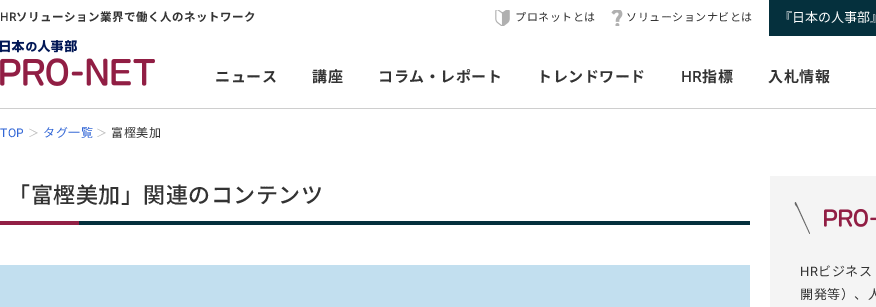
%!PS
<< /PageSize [876 307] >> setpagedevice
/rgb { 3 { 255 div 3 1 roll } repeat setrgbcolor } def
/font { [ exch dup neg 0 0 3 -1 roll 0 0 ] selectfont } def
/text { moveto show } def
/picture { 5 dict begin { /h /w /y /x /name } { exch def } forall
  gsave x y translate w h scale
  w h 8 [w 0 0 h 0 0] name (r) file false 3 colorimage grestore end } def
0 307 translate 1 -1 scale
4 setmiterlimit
255 255 255 rgb
0 0 876 307 rectfill
(img_01.rgb) 495 10 15 16 picture
(img_02.rgb) 611 10 12 16 picture
5 48 61 rgb
769 0 107 36 rectfill
206 206 206 rgb
0 108 876 1 rectfill
(img_03.rgb) 0 40 155 46 picture
(img_04.rgb) 0 221 750 4 picture
194 223 239 rgb
0 265 750 42 rectfill
244 244 244 rgb
770 176 106 131 rectfill
102 102 102 rgb
796 202.5 moveto 14 31 rlineto 0 0 0 0.5 -0.5 0.5 rcurveto -12 -26 rlineto -1 -2 -3.5 -4 -2.5 -5.5 rcurveto 0 -0.5 0.5 -0.5 1 0 rcurveto closepath fill
(img_05.rgb) 824 209 52 18 picture
/Roboto-Bold 11.5 font
51 51 51 rgb
0 21 moveto 0.5 0 (HR) ashow
/NotoSansCJKJP-Bold 11.5 font
16 21 moveto 0.5 0 (ソリューション業界で働く人のネットワーク) ashow
/NotoSansCJKJP-Regular 11 font
515 21 moveto 0.5 0 (プロネットとは) ashow
626 21 moveto 0.5 0 (ソリューションナビとは) ashow
/NotoSansCJKJP-Regular 13 font
255 255 255 rgb
(『日本の人事部』) 779 22 text
/NotoSansCJKJP-Bold 15 font
51 51 51 rgb
215 82 moveto 0.5 0 (ニュース) ashow
312 82 moveto 0.5 0 (講座) ashow
378 82 moveto 0.5 0 (コラム・レポート) ashow
537 82 moveto 0.5 0 (トレンドワード) ashow
/Roboto-Bold 15 font
681 82 moveto 0.5 0 (HR) ashow
/NotoSansCJKJP-Bold 15 font
702 82 moveto 0.5 0 (指標) ashow
768 82 moveto 0.5 0 (入札情報) ashow
/Roboto-Regular 12 font
51 103 214 rgb
0 137 moveto 0.5 0 (TOP) ashow
/NotoSansCJKJP-Regular 11 font
187 187 187 rgb
28 137 moveto 0.5 0 (＞) ashow
/NotoSansCJKJP-Regular 12 font
51 103 214 rgb
43 137 moveto 0.5 0 (タグ一覧) ashow
/NotoSansCJKJP-Regular 11 font
187 187 187 rgb
96 137 moveto 0.5 0 (＞) ashow
/NotoSansCJKJP-Regular 12 font
51 51 51 rgb
111 137 moveto 0.5 0 (富樫美加) ashow
/NotoSansCJKJP-Medium 22 font
8 203 moveto 0.5 0 (「富樫美加」関連のコンテンツ) ashow
/Roboto-Regular 13 font
800 276 moveto 0.5 0 (HR) ashow
/NotoSansCJKJP-Regular 13 font
818 276 moveto 0.5 0 (ビジネス) ashow
800 299 moveto 0.5 0 (開発等）、人) ashow
showpage
